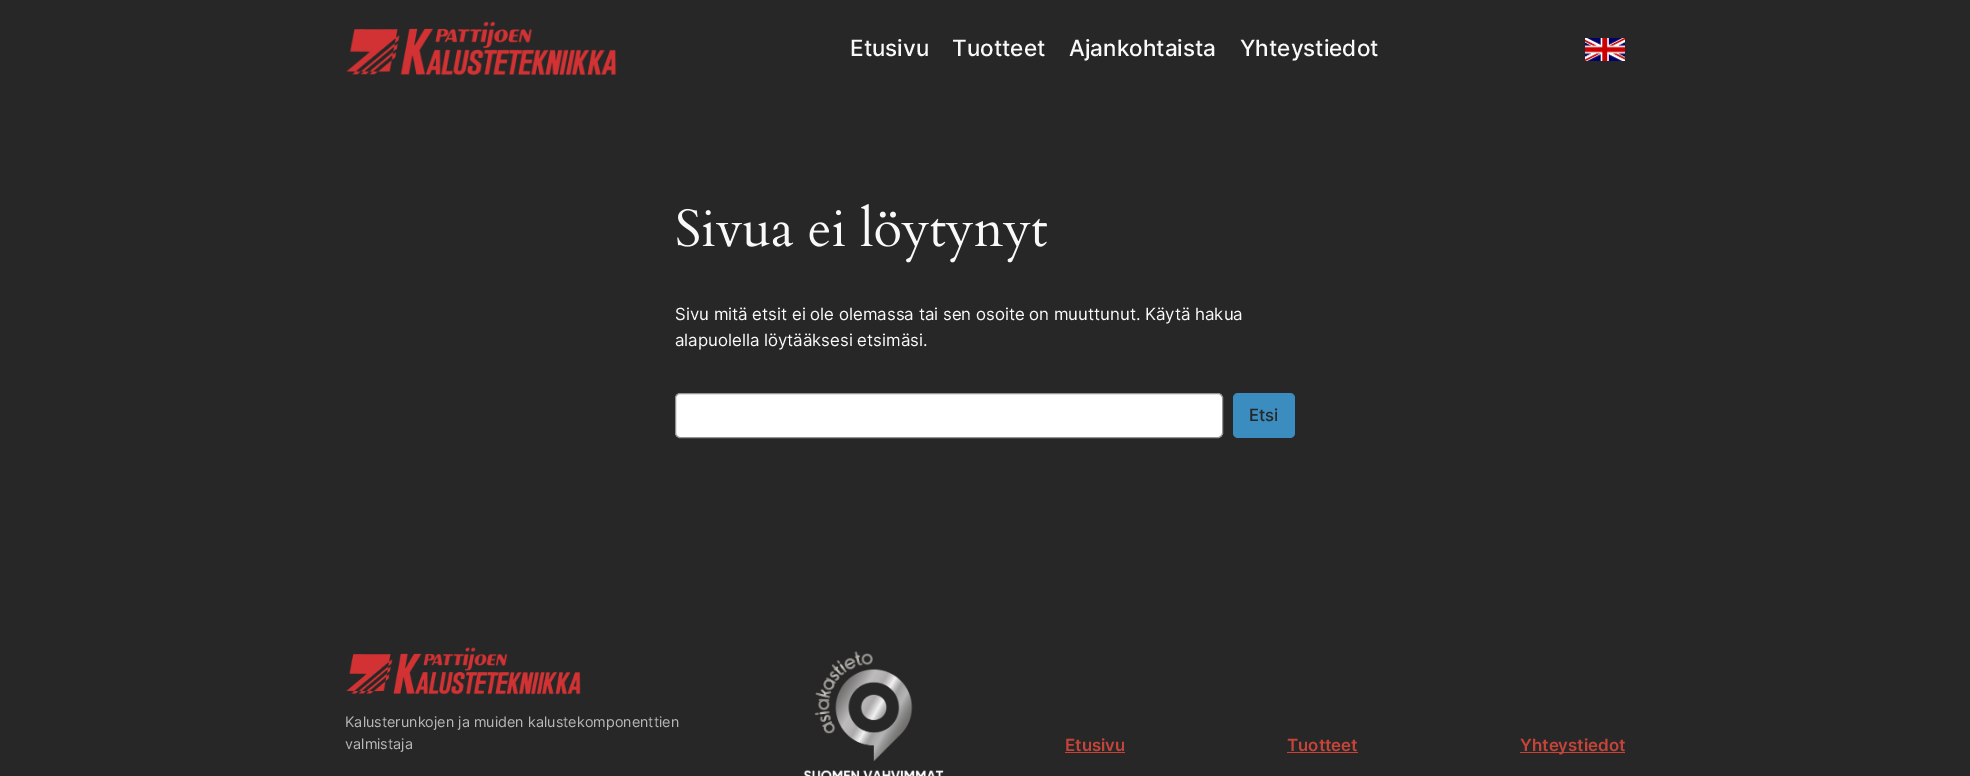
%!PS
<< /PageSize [1970 776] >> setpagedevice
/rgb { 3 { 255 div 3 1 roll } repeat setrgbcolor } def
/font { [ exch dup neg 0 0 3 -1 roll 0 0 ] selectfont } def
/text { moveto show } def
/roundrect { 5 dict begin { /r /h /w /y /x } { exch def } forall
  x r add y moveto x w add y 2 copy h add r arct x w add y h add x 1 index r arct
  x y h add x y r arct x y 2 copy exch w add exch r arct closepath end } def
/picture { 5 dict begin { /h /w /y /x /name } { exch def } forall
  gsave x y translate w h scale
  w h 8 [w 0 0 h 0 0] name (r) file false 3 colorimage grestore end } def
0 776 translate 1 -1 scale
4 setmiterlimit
39 39 39 rgb
0 0 1970 776 rectfill
(img_01.rgb) 346 21 271 55 picture
(img_02.rgb) 1585 38 40 23 picture
(img_03.rgb) 677 204 370 59 picture
255 255 255 rgb
675.5 393.5 547 44 4.5 roundrect gsave fill grestore
148 148 148 rgb
stroke
59 140 191 rgb
1233 393 62 45 5 roundrect fill
(img_04.rgb) 346 647 235 48 picture
(img_05.rgb) 803 651 141 125 picture
197 68 58 rgb
1065 752 60 1 rectfill
1287 752 71 1 rectfill
1520 752 105 1 rectfill
/Inter-Medium 22.5 font
249 249 249 rgb
(Etusivu) 850 56 text
(Tuotteet) 952 56 text
(Ajankohtaista) 1069 56 text
(Yhteystiedot) 1240 56 text
/Inter-Regular 16.8 font
(Sivu mitä etsit ei ole olemassa tai sen osoite on muuttunut. Käytä hakua) 675 320 text
(alapuolella löytääksesi etsimäsi.) 675 346 text
/Inter-Medium 16.8 font
39 39 39 rgb
(Etsi) 1249 421 text
/Inter-Regular 14.4 font
183 183 183 rgb
(Kalusterunkojen ja muiden kalustekomponenttien) 345 727 text
(valmistaja) 345 749 text
/Inter-SemiBold 16.8 font
197 68 58 rgb
(Etusivu) 1065 751 text
(Tuotteet) 1287 751 text
(Yhteystiedot) 1520 751 text
showpage
